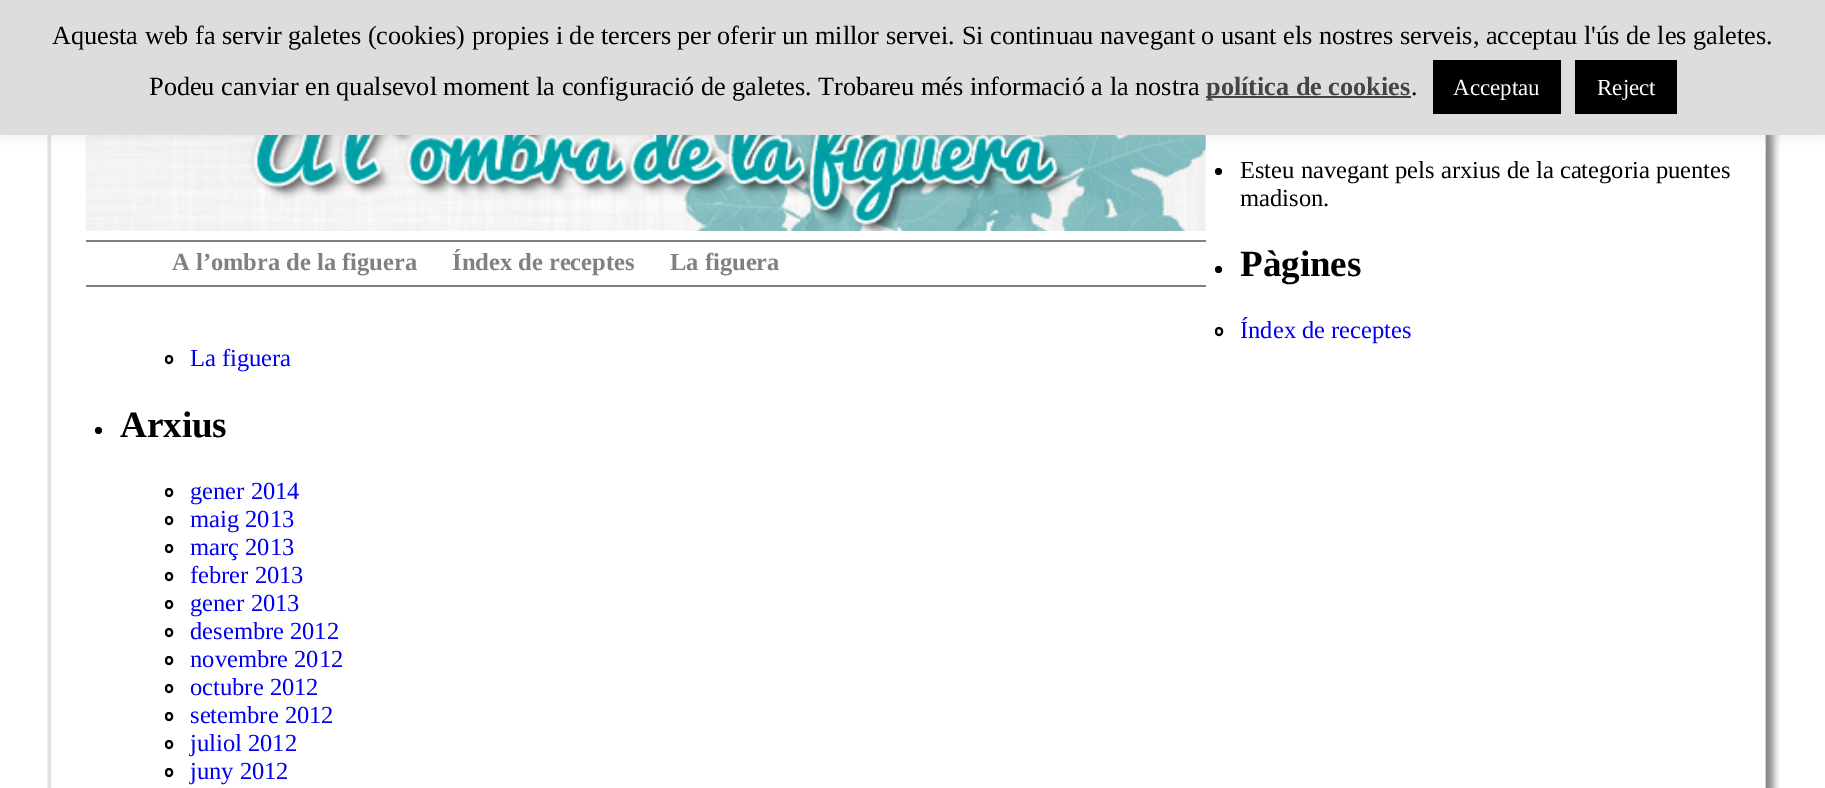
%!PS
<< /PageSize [1825 788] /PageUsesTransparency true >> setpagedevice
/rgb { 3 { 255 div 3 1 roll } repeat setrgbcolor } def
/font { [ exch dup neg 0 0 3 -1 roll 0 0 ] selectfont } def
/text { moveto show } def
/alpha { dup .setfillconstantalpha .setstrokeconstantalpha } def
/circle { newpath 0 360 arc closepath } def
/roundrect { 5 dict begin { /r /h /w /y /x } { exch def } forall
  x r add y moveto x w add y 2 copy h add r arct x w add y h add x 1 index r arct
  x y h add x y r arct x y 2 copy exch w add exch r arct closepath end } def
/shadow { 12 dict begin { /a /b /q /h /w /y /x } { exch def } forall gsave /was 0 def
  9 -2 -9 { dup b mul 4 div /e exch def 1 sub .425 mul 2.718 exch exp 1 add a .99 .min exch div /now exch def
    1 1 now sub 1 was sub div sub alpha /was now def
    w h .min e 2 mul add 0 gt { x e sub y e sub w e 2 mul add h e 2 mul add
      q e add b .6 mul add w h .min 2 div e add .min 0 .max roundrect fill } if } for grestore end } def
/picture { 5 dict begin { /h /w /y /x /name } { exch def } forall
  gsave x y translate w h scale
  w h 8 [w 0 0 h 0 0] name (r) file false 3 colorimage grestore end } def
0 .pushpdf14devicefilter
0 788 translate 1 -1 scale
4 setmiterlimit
255 255 255 rgb
0 0 1825 788 rectfill
(img_01.rgb) 47 135 1733 653 picture
(img_02.rgb) 85 135 1121 96 picture
172 171 171 rgb
0 -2 1825 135 0 9 0.3 shadow
221 221 221 rgb
0 0 1825 135 rectfill
68 68 68 rgb
1206 96 205 2 rectfill
0 0 0 rgb
1433 60 128 54 rectfill
1575 60 102 54 rectfill
1218.5 171.5 3.5 circle fill
1218.5 269.5 3.5 circle fill
2 setlinewidth
1216 328 6 7 3 roundrect stroke
166 356 6 7 3 roundrect stroke
98.5 430.5 3.5 circle fill
166 489 6 7 3 roundrect stroke
166 517 6 7 3 roundrect stroke
166 545 6 7 3 roundrect stroke
166 573 6 7 3 roundrect stroke
166 601 6 7 3 roundrect stroke
166 629 6 7 3 roundrect stroke
166 657 6 7 3 roundrect stroke
166 685 6 7 3 roundrect stroke
166 713 6 7 3 roundrect stroke
166 741 6 7 3 roundrect stroke
166 769 6 7 3 roundrect stroke
128 128 128 rgb
86 240 1120 2 rectfill
86 285 1120 2 rectfill
/LiberationSerif-Regular 26.25 font
0 0 0 rgb
(Aquesta web fa servir galetes \(cookies\) propies i de tercers per oferir un millor servei. Si continuau navegant o usant els nostres serveis, acceptau l'ús de les galetes.) 52 44 text
(Podeu canviar en qualsevol moment la configuració de galetes. Trobareu més informació a la nostra) 149 95 text
/LiberationSerif-Bold 26.25 font
68 68 68 rgb
(política de cookies) 1206 95 text
/LiberationSerif-Regular 26.25 font
0 0 0 rgb
(.) 1411 95 text
/LiberationSerif-Regular 23 font
255 255 255 rgb
(Acceptau) 1453 95 text
(Reject) 1597 95 text
/LiberationSerif-Regular 24.5 font
0 0 0 rgb
(Esteu navegant pels arxius de la categoria puentes) 1240 178 text
(madison.) 1240 206 text
/LiberationSerif-Bold 37 font
(Pàgines) 1240 276 text
/LiberationSerif-Regular 24.5 font
0 0 238 rgb
(Índex de receptes) 1240 338 text
(La figuera) 190 366 text
/LiberationSerif-Bold 37 font
0 0 0 rgb
(Arxius) 120 437 text
/LiberationSerif-Regular 24.5 font
0 0 238 rgb
(gener 2014) 190 499 text
(maig 2013) 190 527 text
(març 2013) 190 555 text
(febrer 2013) 190 583 text
(gener 2013) 190 611 text
(desembre 2012) 190 639 text
(novembre 2012) 190 667 text
(octubre 2012) 190 695 text
(setembre 2012) 190 723 text
(juliol 2012) 190 751 text
(juny 2012) 190 779 text
/LiberationSerif-Bold 24.5 font
128 128 128 rgb
(A l’ombra de la figuera) 172 270 text
(Índex de receptes) 452 270 text
(La figuera) 670 270 text
.poppdf14devicefilter showpage
